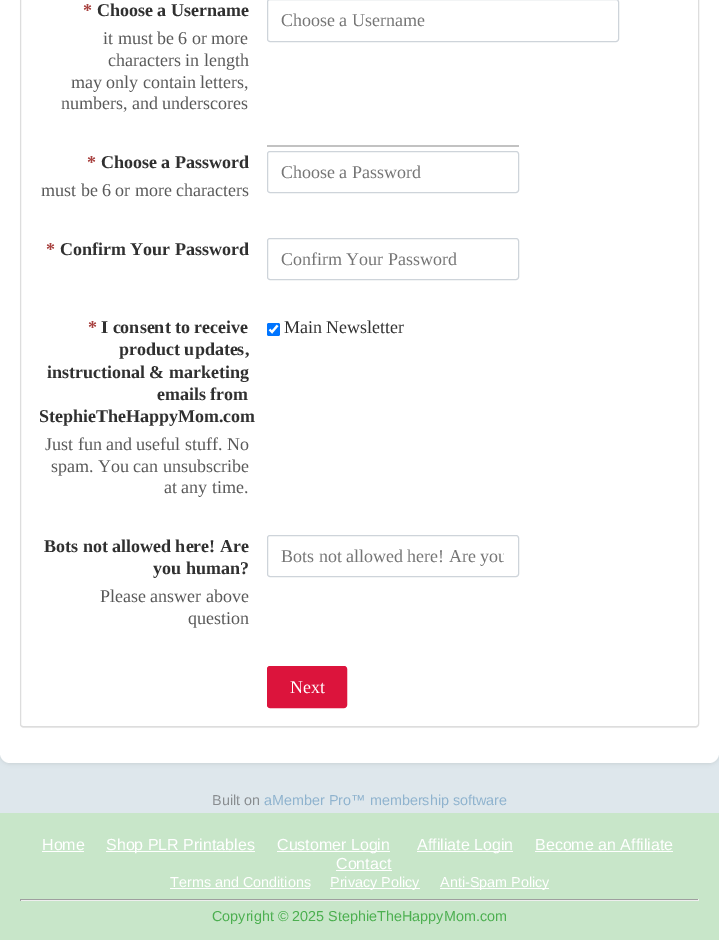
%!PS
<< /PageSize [719 940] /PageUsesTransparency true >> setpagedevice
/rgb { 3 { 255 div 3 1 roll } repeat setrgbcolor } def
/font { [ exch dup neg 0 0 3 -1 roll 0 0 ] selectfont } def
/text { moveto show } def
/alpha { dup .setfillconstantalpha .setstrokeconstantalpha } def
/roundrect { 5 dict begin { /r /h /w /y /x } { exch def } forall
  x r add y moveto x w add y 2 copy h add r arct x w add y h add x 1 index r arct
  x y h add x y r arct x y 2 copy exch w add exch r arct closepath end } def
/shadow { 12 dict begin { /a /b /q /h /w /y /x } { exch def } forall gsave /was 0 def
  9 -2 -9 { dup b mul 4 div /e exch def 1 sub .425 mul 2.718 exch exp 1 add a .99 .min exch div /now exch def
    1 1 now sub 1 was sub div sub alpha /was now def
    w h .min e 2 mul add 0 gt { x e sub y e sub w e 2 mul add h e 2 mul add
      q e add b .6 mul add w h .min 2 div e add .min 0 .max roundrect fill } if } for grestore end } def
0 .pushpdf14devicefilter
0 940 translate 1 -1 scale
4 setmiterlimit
222 231 236 rgb
0 0 719 940 rectfill
0 0 0 rgb
0 -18 719 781 10 2.5 0.13 shadow
255 255 255 rgb
0 -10 719 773 10 roundrect fill
176 176 176 rgb
21 -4 677 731 2 0.5 1 shadow
255 255 255 rgb
20.5 -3.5 678 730 2.5 roundrect gsave fill grestore
221 221 221 rgb
stroke
206 212 218 rgb
267.5 -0.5 351 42 2.5 roundrect stroke
194 194 194 rgb
267 145 252 2 rectfill
206 212 218 rgb
267.5 151.5 251 41 2.5 roundrect stroke
267.5 238.5 251 41 2.5 roundrect stroke
0 117 255 rgb
267 323 13 13 2 roundrect fill
255 255 255 rgb
2.1 setlinewidth
269.5 329.5 moveto 2.5 2.5 rlineto 5.5 -6.5 rlineto stroke
206 212 218 rgb
1 setlinewidth
267.5 535.5 251 41 2.5 roundrect stroke
220 20 60 rgb
267.5 666.5 79 41 2.5 roundrect gsave fill grestore
stroke
200 230 201 rgb
0 813 719 127 rectfill
255 255 255 rgb
42 851 42 1 rectfill
106 851 149 1 rectfill
277 851 113 1 rectfill
417 851 96 1 rectfill
535 851 138 1 rectfill
336 870 56 1 rectfill
170 888 140 1 rectfill
330 888 90 1 rectfill
440 888 109 1 rectfill
159 159 159 rgb
20 899 679 1 rectfill
238 238 238 rgb
698 899 1 2 rectfill
20 900 679 1 rectfill
159 159 159 rgb
20 899 1 2 rectfill
/LiberationSerif-Bold 18 font
169 68 66 rgb
(*) 83 16 text
48 48 48 rgb
(Choose a Username) 97 16 text
/LiberationSerif-Regular 18 font
89 89 89 rgb
(it must be 6 or more) 103 44 text
(characters in length) 108 66 text
(may only contain letters,) 71 88 text
(numbers, and underscores) 61 109 text
117 117 117 rgb
(Choose a Username) 281 26 text
/LiberationSerif-Bold 18 font
169 68 66 rgb
(*) 87 168 text
48 48 48 rgb
(Choose a Password) 101 168 text
/LiberationSerif-Regular 18 font
89 89 89 rgb
(must be 6 or more characters) 41 196 text
117 117 117 rgb
(Choose a Password) 281 178 text
/LiberationSerif-Bold 18 font
169 68 66 rgb
(*) 46 255 text
48 48 48 rgb
(Confirm Your Password) 60 255 text
/LiberationSerif-Regular 18 font
117 117 117 rgb
(Confirm Your Password) 281 265 text
/LiberationSerif-Bold 18 font
169 68 66 rgb
(*) 88 333 text
48 48 48 rgb
(I consent to receive) 101 333 text
(product updates,) 119 355 text
(instructional & marketing) 47 378 text
(emails from) 157 400 text
(StephieTheHappyMom.com) 39 422 text
/LiberationSerif-Regular 18 font
89 89 89 rgb
(Just fun and useful stuff. No) 45 450 text
(spam. You can unsubscribe) 51 472 text
(at any time.) 164 493 text
48 48 48 rgb
(Main Newsletter) 284 333 text
/LiberationSerif-Bold 18 font
(Bots not allowed here! Are) 44 552 text
(you human?) 153 574 text
/LiberationSerif-Regular 18 font
89 89 89 rgb
(Please answer above) 100 602 text
(question) 188 624 text
gsave
281 546 223 21 rectclip
117 117 117 rgb
(Bots not allowed here! Are you) 281 562 text
grestore
255 255 255 rgb
(Next) 290 693 text
/LiberationSans-Regular 14.4 font
137 141 144 rgb
(Built on) 212 805 text
143 179 206 rgb
(aMember Pro™ membership software) 264 805 text
/LiberationSans-Regular 16 font
255 255 255 rgb
(Home) 42 850 text
(Shop PLR Printables) 106 850 text
(Customer Login) 277 850 text
(Affiliate Login) 417 850 text
(Become an Affiliate) 535 850 text
(Contact) 336 869 text
/LiberationSans-Regular 14.4 font
(Terms and Conditions) 170 887 text
(Privacy Policy) 330 887 text
(Anti-Spam Policy) 440 887 text
76 175 80 rgb
(Copyright © 2025 StephieTheHappyMom.com) 212 921 text
.poppdf14devicefilter showpage
